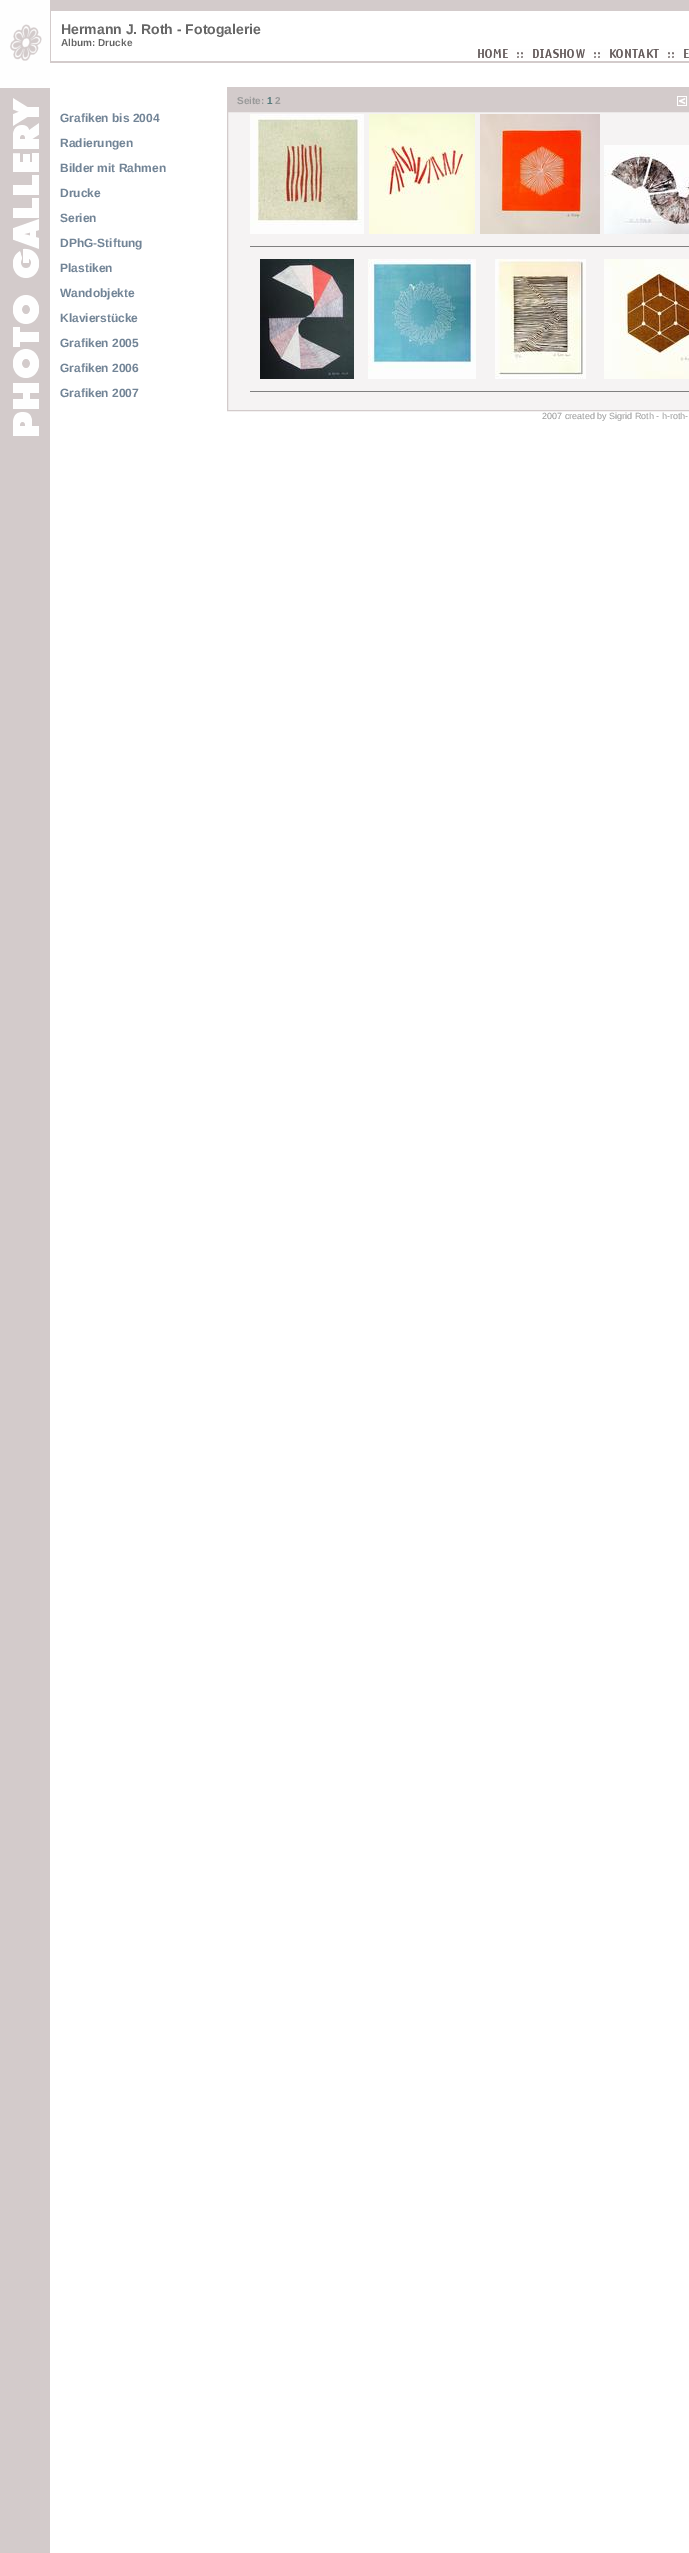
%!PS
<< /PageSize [689 2553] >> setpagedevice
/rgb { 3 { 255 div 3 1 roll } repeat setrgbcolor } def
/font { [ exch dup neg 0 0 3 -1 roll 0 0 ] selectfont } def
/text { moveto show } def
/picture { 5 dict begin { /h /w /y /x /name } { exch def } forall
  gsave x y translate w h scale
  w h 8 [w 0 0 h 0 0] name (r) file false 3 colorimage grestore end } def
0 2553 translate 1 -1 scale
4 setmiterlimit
255 255 255 rgb
0 0 689 2553 rectfill
211 203 203 rgb
0 436 50 2117 rectfill
(img_01.rgb) 0 0 50 436 picture
50 0 639 11 rectfill
50 61 639 2 rectfill
50 11 1 52 rectfill
(img_02.rgb) 478 49 211 9 picture
227 87 462 24 rectfill
(img_03.rgb) 677 96 10 10 picture
245 243 243 rgb
227.5 111.5 moveto 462 0 rlineto 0 299 rlineto -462 0 rlineto closepath gsave fill grestore
211 203 203 rgb
stroke
(img_04.rgb) 250 114 114 120 picture
(img_05.rgb) 369 114 106 120 picture
(img_06.rgb) 480 114 120 120 picture
(img_07.rgb) 604 145 85 89 picture
128 128 128 rgb
250 246 439 1 rectfill
(img_08.rgb) 260 259 94 120 picture
(img_09.rgb) 368 259 108 120 picture
(img_10.rgb) 495 259 91 120 picture
(img_11.rgb) 604 259 85 120 picture
250 391 439 1 rectfill
/LiberationSans-Bold 14 font
102 102 102 rgb
(Hermann J. Roth - Fotogalerie) 61 34 text
/LiberationSans-Bold 10 font
(Album: Drucke) 61 46 text
153 153 153 rgb
(Seite:) 237 104 text
82 122 124 rgb
(1) 267 104 text
153 153 153 rgb
(2) 275 104 text
/LiberationSans-Bold 12 font
114 132 150 rgb
(Grafiken bis 2004) 60 122 text
(Radierungen) 60 147 text
(Bilder mit Rahmen) 60 172 text
(Drucke) 60 197 text
(Serien) 60 222 text
(DPhG-Stiftung) 60 247 text
(Plastiken) 60 272 text
(Wandobjekte) 60 297 text
(Klavierstücke) 60 322 text
(Grafiken 2005) 60 347 text
(Grafiken 2006) 60 372 text
(Grafiken 2007) 60 397 text
/LiberationSans-Regular 9 font
153 153 153 rgb
(2007 created by Sigrid Roth - h-roth-) 542 419 text
showpage
